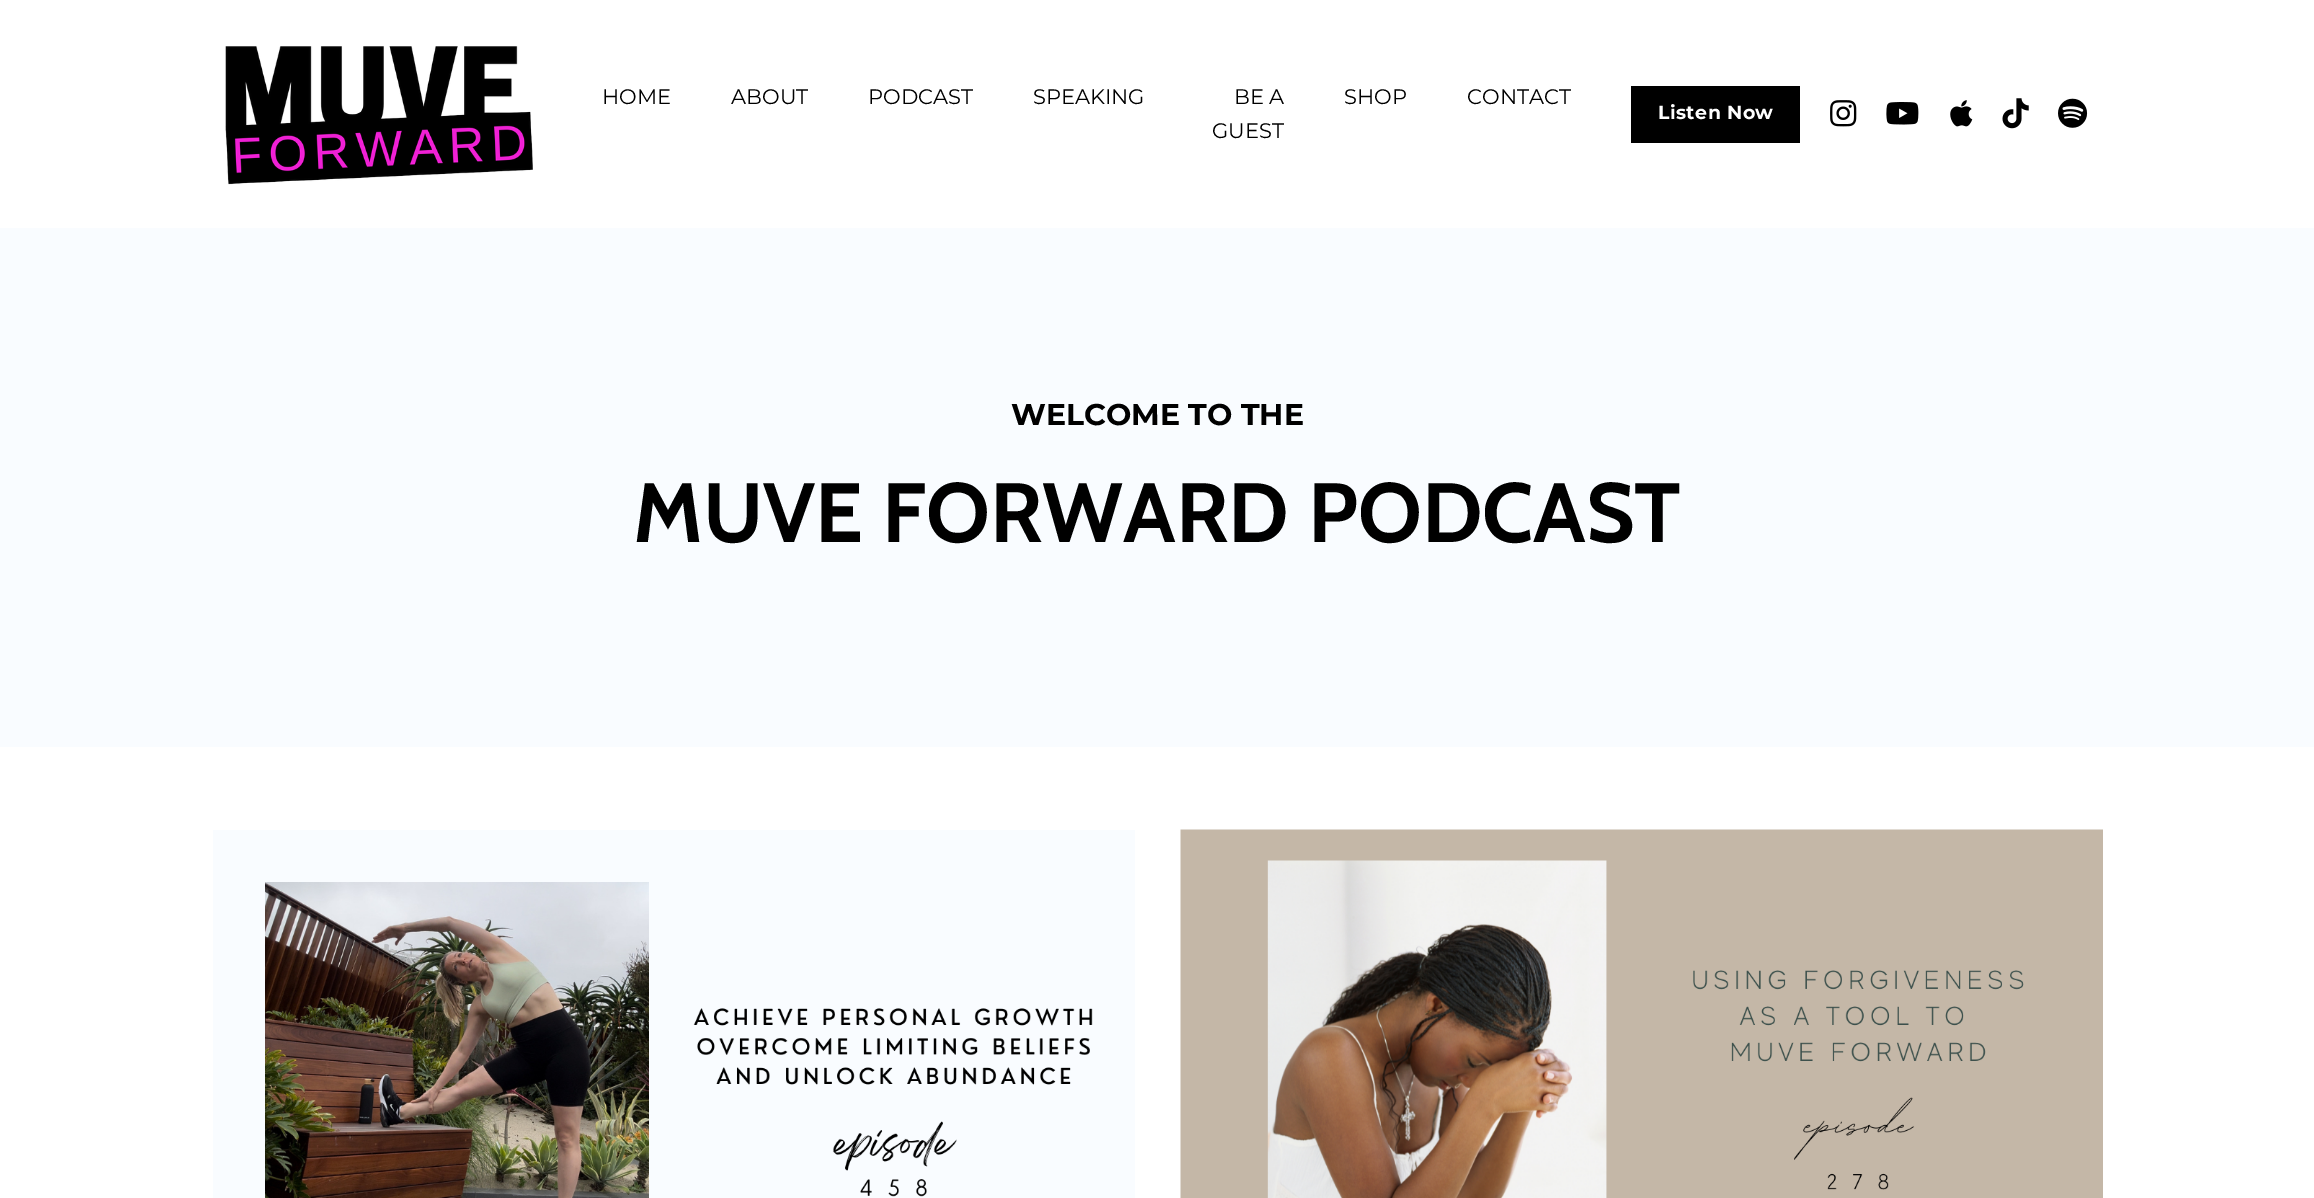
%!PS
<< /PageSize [2314 1198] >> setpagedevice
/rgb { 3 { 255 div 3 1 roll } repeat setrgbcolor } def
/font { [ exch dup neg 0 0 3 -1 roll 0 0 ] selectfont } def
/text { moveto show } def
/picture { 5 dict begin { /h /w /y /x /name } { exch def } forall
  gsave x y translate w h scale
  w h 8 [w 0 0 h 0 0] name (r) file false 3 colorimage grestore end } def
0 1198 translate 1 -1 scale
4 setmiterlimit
249 252 255 rgb
0 0 2314 1198 rectfill
255 255 255 rgb
0 0 2314 228 rectfill
(img_01.rgb) 225 46 308 139 picture
0 0 0 rgb
1631 86 169 57 rectfill
(img_02.rgb) 1830 100 27 27 picture
(img_03.rgb) 1886 102 33 23 picture
(img_04.rgb) 1950 100 23 27 picture
(img_05.rgb) 2002 98 27 31 picture
(img_06.rgb) 2058 98 30 30 picture
255 255 255 rgb
0 747 2314 451 rectfill
(img_07.rgb) 213 830 922 368 picture
(img_08.rgb) 1180 829 923 369 picture
/Montserrat-Regular 21 font
0 0 0 rgb
(HOME) 602 104 text
(ABOUT) 731 104 text
(PODCAST) 868 104 text
(SPEAKING) 1033 104 text
(BE A) 1234 104 text
(GUEST) 1212 138 text
(SHOP) 1344 104 text
(CONTACT) 1467 104 text
/Montserrat-Bold 19 font
255 255 255 rgb
1658 119 moveto 0.4 0 (Listen Now) ashow
/Montserrat-Bold 30 font
0 0 0 rgb
(WELCOME TO THE) 1011 425 text
/Cabin-Bold 84 font
(MUVE FORWARD PODCAST) 633 542 text
showpage
